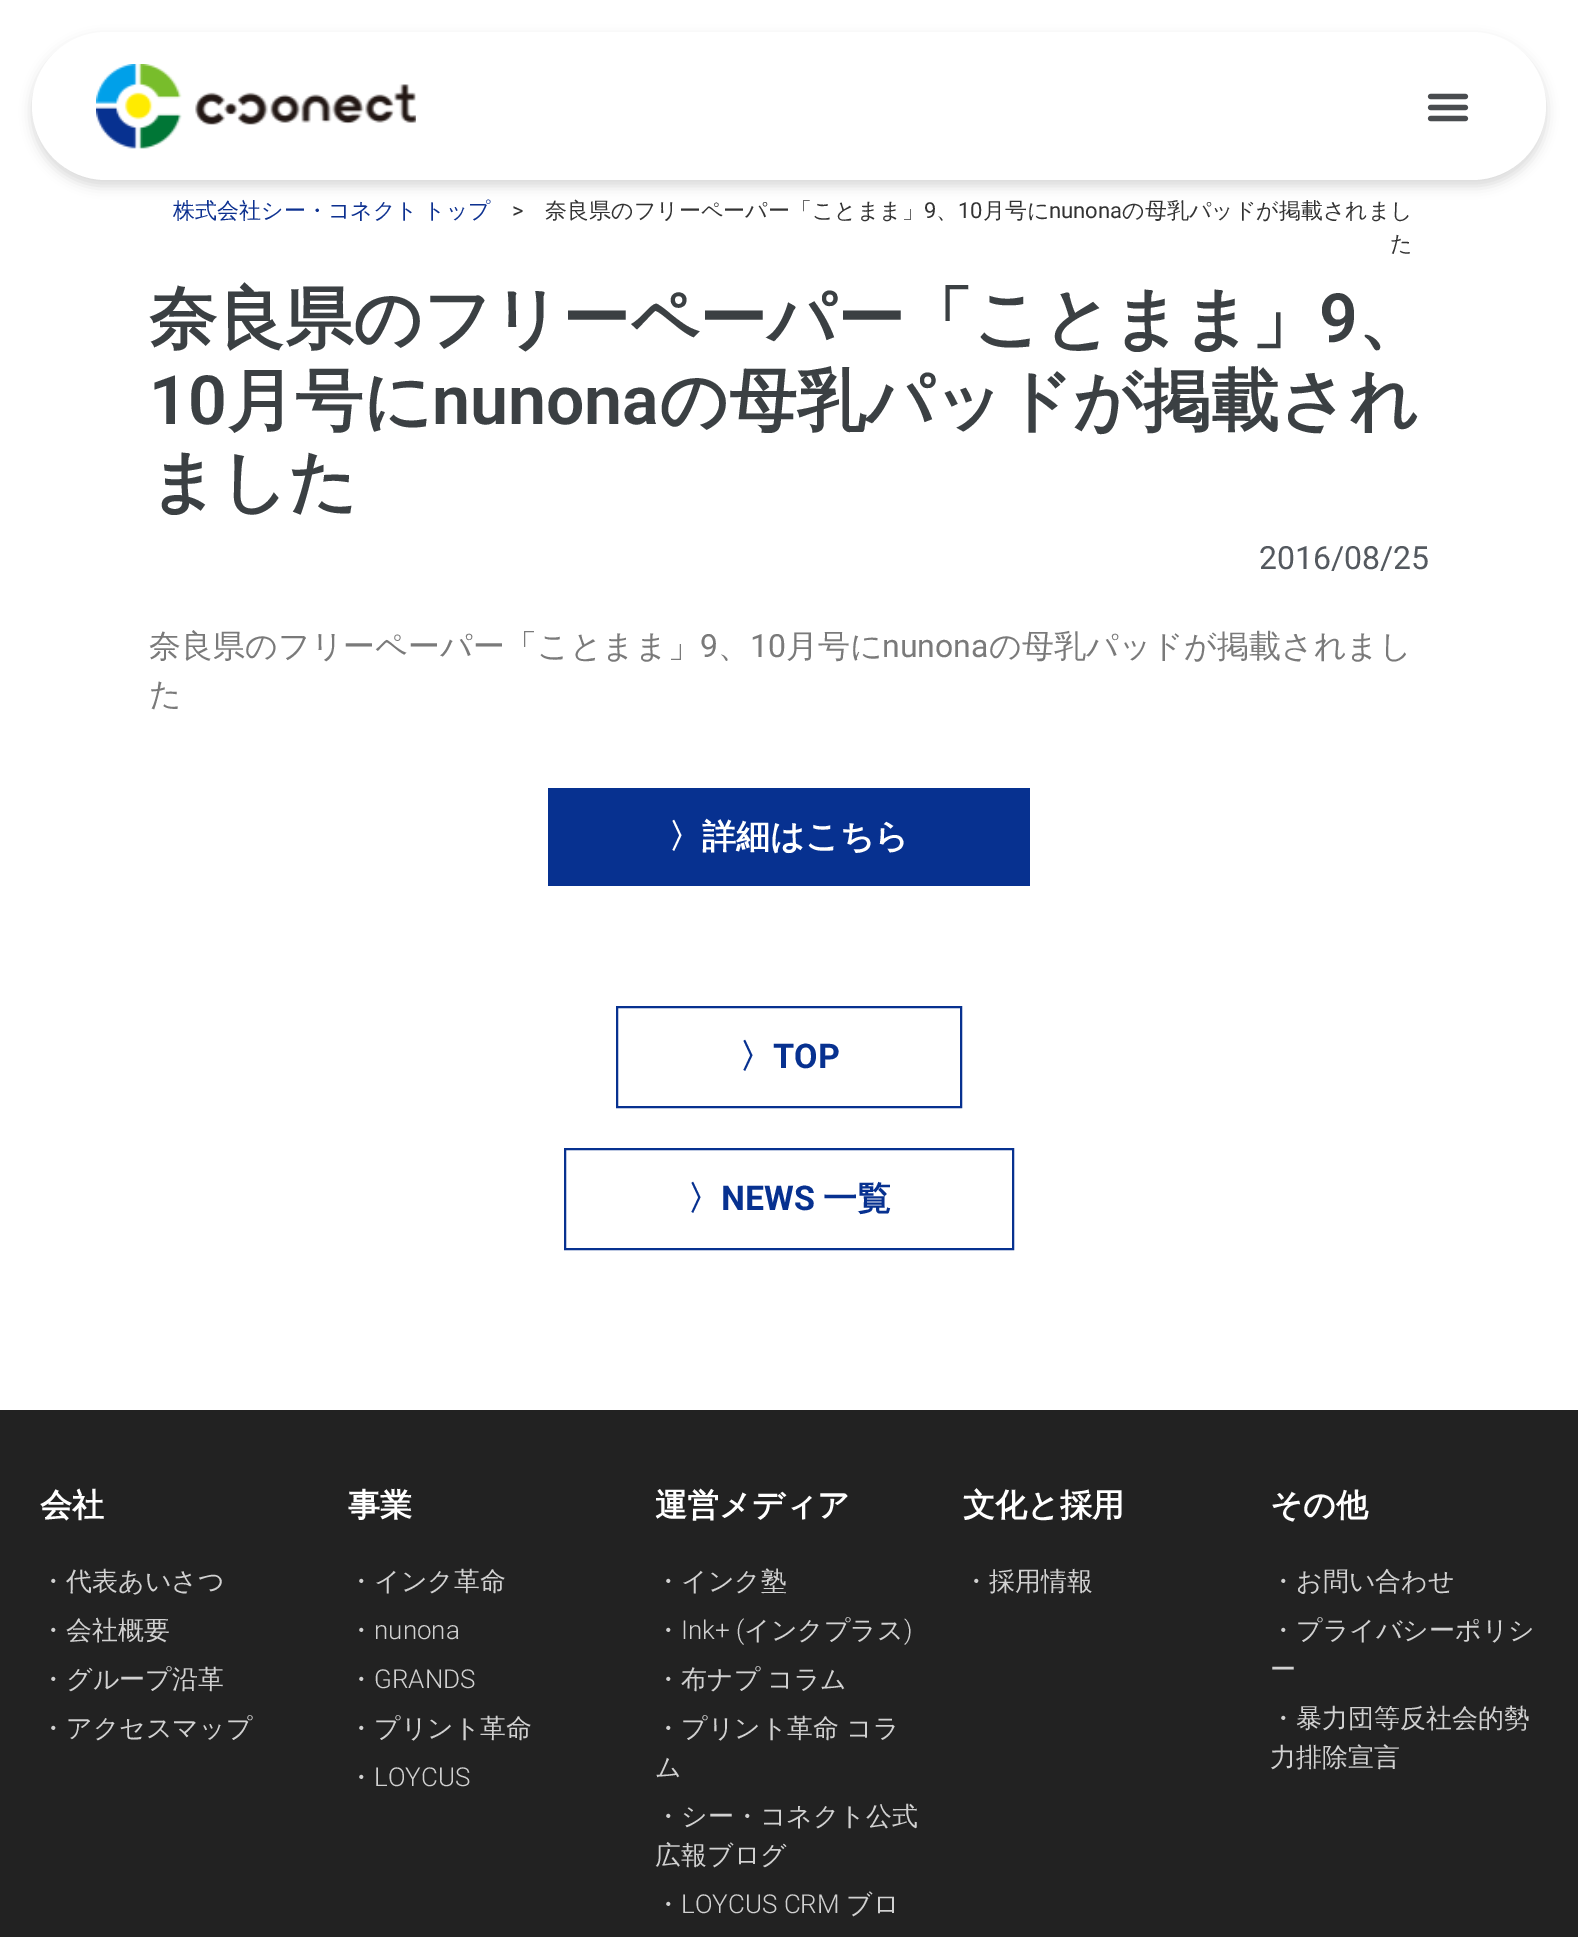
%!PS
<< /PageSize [1578 1937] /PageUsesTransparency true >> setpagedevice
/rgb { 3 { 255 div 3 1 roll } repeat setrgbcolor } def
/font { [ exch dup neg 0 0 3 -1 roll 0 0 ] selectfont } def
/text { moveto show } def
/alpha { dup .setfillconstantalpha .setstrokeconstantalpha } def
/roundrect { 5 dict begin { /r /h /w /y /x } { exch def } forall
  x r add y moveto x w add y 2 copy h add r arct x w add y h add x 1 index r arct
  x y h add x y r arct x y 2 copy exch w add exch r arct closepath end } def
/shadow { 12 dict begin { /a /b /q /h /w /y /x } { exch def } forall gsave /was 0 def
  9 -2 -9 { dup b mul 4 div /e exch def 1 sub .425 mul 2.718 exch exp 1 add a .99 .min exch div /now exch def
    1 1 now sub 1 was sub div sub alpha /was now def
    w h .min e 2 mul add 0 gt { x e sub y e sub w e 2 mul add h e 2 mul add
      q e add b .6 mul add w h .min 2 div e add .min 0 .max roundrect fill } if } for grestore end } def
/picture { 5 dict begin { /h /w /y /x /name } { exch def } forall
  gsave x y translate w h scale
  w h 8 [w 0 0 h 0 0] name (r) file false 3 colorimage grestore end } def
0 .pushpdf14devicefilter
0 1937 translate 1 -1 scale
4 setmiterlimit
255 255 255 rgb
0 0 1578 1937 rectfill
0 0 0 rgb
32 38 1514 148 74 6 0.15 shadow
255 255 255 rgb
32 32 1514 148 74 roundrect fill
(img_01.rgb) 96 64 320 85 picture
(img_02.rgb) 1427 93 42 29 picture
7 49 144 rgb
548 788 482 98 rectfill
2 setlinewidth
617 1007 344 100 rectstroke
565 1149 448 100 rectstroke
34 34 34 rgb
0 1410 1578 527 rectfill
/WenQuanYiZenHei-Medium 22 font
13 49 144 rgb
173 218 moveto -1 0 32 (株式会社シー・コネクト トップ) widthshow
/Roboto-Regular 22 font
51 51 51 rgb
(>) 512 218 text
/WenQuanYiZenHei-Medium 22 font
(奈良県のフリーペーパー「ことまま」) 545 218 text
/Roboto-Regular 22 font
(9) 924 218 text
/WenQuanYiZenHei-Medium 22 font
(、) 936 218 text
/Roboto-Regular 22 font
(10) 958 218 text
/WenQuanYiZenHei-Medium 22 font
(月号に) 983 218 text
/Roboto-Regular 22 font
(nunona) 1049 218 text
/WenQuanYiZenHei-Medium 22 font
(の母乳パッドが掲載されまし) 1122 218 text
(た) 1390 251 text
/WenQuanYiZenHei-Bold 68 font
59 64 67 rgb
(奈良県のフリーペーパー「ことまま」) 149 342 text
/Roboto-SemiBold 68 font
(9) 1319 342 text
/WenQuanYiZenHei-Bold 68 font
(、) 1358 342 text
/Roboto-SemiBold 68 font
(10) 149 424 text
/WenQuanYiZenHei-Bold 68 font
(月号に) 227 424 text
/Roboto-SemiBold 68 font
(nunona) 432 424 text
/WenQuanYiZenHei-Bold 68 font
(の母乳パッドが掲載され) 659 424 text
(ました) 149 505 text
/Roboto-Regular 32 font
84 89 95 rgb
(2016/08/25) 1259 569 text
/WenQuanYiZenHei-Medium 32 font
122 122 122 rgb
(奈良県のフリーペーパー「ことまま」) 149 657 text
/Roboto-Regular 32 font
(9) 700 657 text
/WenQuanYiZenHei-Medium 32 font
(、) 718 657 text
/Roboto-Regular 32 font
(10) 750 657 text
/WenQuanYiZenHei-Medium 32 font
(月号に) 786 657 text
/Roboto-Regular 32 font
(nunona) 882 657 text
/WenQuanYiZenHei-Medium 32 font
(の母乳パッドが掲載されまし) 989 657 text
(た) 149 705 text
/WenQuanYiZenHei-Bold 34 font
255 255 255 rgb
(〉詳細はこちら) 668 848 text
7 49 144 rgb
(〉) 739 1068 text
/Roboto-Bold 34 font
(TOP) 773 1068 text
/WenQuanYiZenHei-Bold 34 font
(〉) 687 1210 text
/Roboto-Bold 34 font
(NEWS) 721 1210 text
/WenQuanYiZenHei-Bold 34 font
(一覧) 823 1210 text
/WenQuanYiZenHei-Bold 32 font
255 255 255 rgb
(会社) 40 1516 text
/WenQuanYiZenHei-Medium 26 font
209 209 209 rgb
(・代表あいさつ) 40 1590 text
(・会社概要) 40 1639 text
(・グループ沿革) 40 1688 text
(・アクセスマップ) 40 1737 text
/WenQuanYiZenHei-Bold 32 font
255 255 255 rgb
(事業) 348 1516 text
/WenQuanYiZenHei-Medium 26 font
209 209 209 rgb
(・インク革命) 348 1590 text
(・) 348 1639 text
/Roboto-Light 26 font
(nunona) 374 1639 text
/WenQuanYiZenHei-Medium 26 font
(・) 348 1688 text
/Roboto-Light 26 font
(GRANDS) 374 1688 text
/WenQuanYiZenHei-Medium 26 font
(・プリント革命) 348 1737 text
(・) 348 1786 text
/Roboto-Light 26 font
(LOYCUS) 374 1786 text
/WenQuanYiZenHei-Bold 32 font
255 255 255 rgb
(運営メディア) 655 1516 text
/WenQuanYiZenHei-Medium 26 font
209 209 209 rgb
(・インク塾) 655 1590 text
(・) 655 1639 text
/Roboto-Light 26 font
(Ink+ \() 681 1639 text
/WenQuanYiZenHei-Medium 26 font
(インクプラス) 744 1639 text
/Roboto-Light 26 font
(\)) 904 1639 text
/WenQuanYiZenHei-Medium 26 font
655 1688 moveto -1 0 32 (・布ナプ コラム) widthshow
655 1737 moveto -1 0 32 (・プリント革命 コラ) widthshow
(ム) 655 1776 text
(・シー・コネクト公式) 655 1825 text
(広報ブログ) 655 1864 text
(・) 655 1913 text
/Roboto-Light 26 font
(LOYCUS CRM) 681 1913 text
/WenQuanYiZenHei-Medium 26 font
(ブロ) 846 1913 text
/WenQuanYiZenHei-Bold 32 font
255 255 255 rgb
(文化と採用) 963 1516 text
/WenQuanYiZenHei-Medium 26 font
209 209 209 rgb
(・採用情報) 963 1590 text
/WenQuanYiZenHei-Bold 32 font
255 255 255 rgb
(その他) 1270 1516 text
/WenQuanYiZenHei-Medium 26 font
209 209 209 rgb
(・お問い合わせ) 1270 1590 text
(・プライバシーポリシ) 1270 1639 text
(ー) 1270 1678 text
(・暴力団等反社会的勢) 1270 1727 text
(力排除宣言) 1270 1766 text
.poppdf14devicefilter showpage
